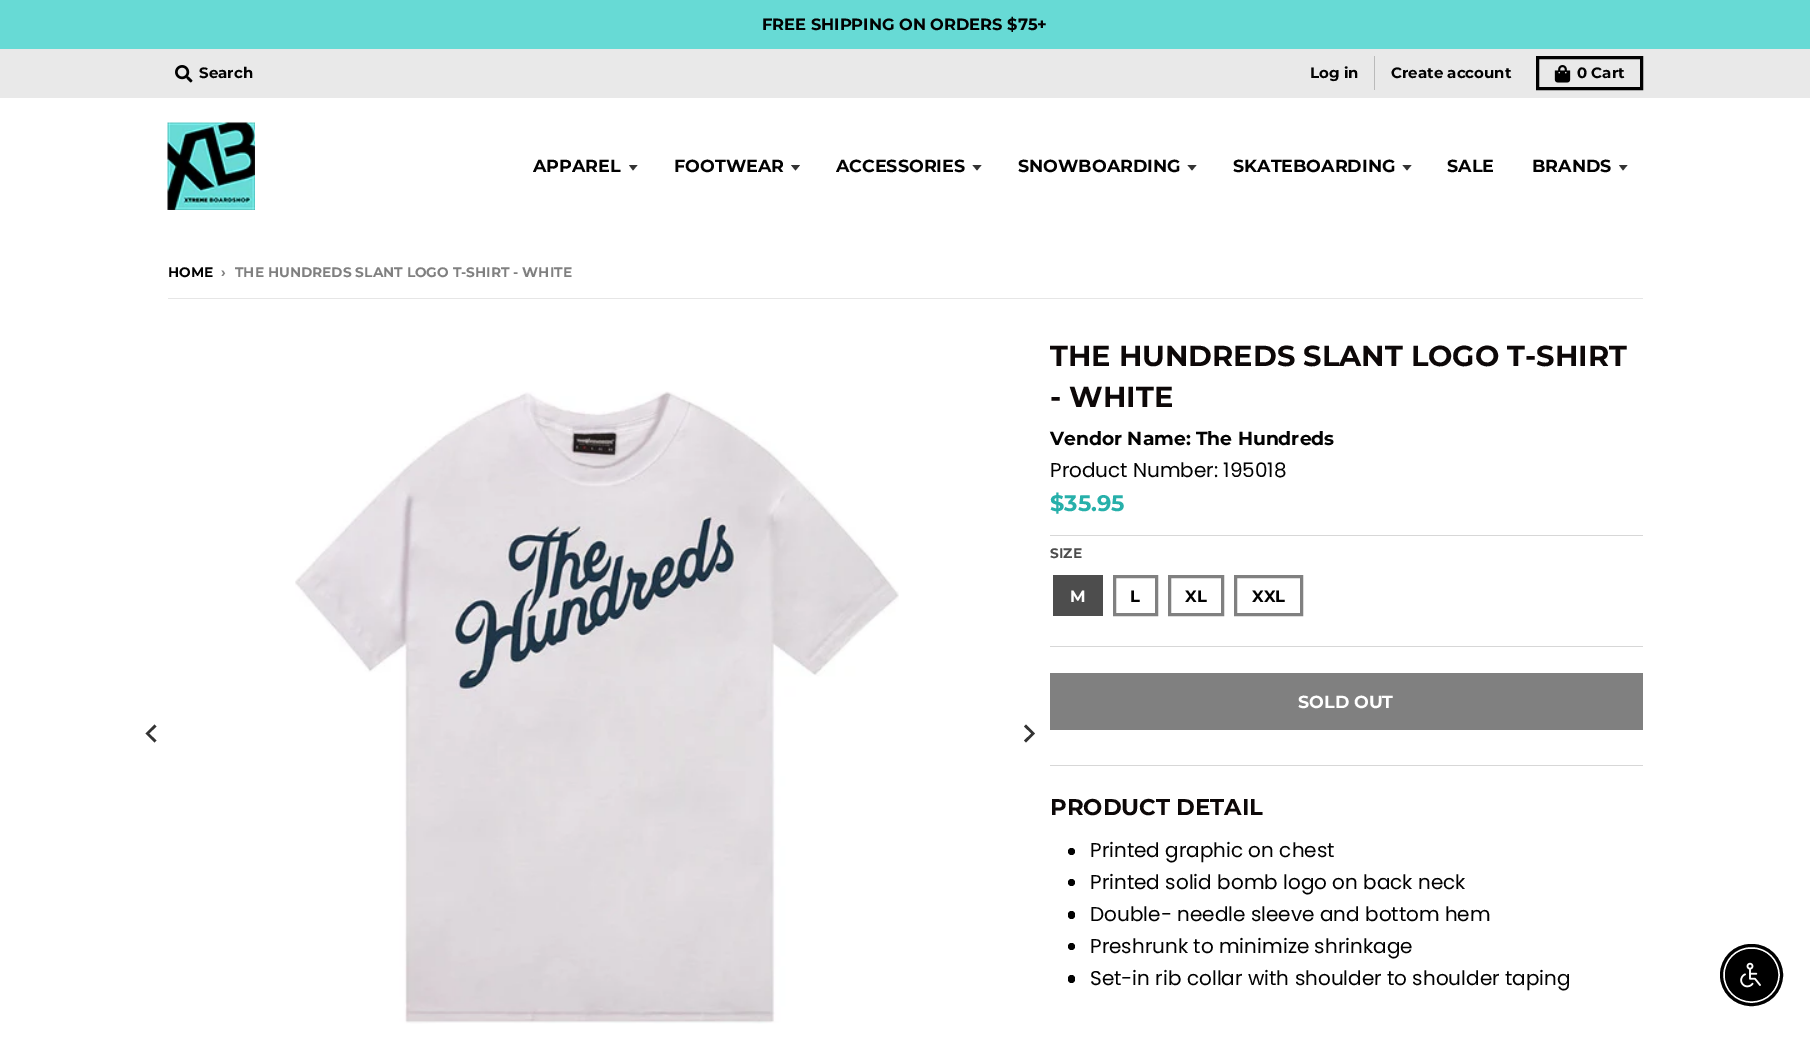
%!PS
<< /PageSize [1810 1046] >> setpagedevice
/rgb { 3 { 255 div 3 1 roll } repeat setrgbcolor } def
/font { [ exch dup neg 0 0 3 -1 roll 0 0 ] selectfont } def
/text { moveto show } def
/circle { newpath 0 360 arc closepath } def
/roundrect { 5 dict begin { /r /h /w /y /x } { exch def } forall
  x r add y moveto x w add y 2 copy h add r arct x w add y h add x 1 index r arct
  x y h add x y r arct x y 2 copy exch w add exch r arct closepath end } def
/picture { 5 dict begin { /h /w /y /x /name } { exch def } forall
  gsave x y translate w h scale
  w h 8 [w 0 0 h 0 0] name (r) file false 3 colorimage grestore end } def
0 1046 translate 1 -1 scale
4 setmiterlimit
255 255 255 rgb
0 0 1810 1046 rectfill
103 218 213 rgb
0 0 1810 49 rectfill
233 233 233 rgb
0 49 1810 49 rectfill
(img_01.rgb) 175 65 18 18 picture
186 186 186 rgb
1374 56 1 34 rectfill
0 0 0 rgb
3 setlinewidth
1537.5 57.5 104 31 rectstroke
(img_02.rgb) 1554 65 17 18 picture
(img_03.rgb) 167 122 88 88 picture
51 51 51 rgb
629 165 moveto 4 5.5 rlineto 4.5 -5.5 rlineto closepath fill
791 165 moveto 4.5 5.5 rlineto 4.5 -5.5 rlineto closepath fill
972.5 165 moveto 4.5 5.5 rlineto 4.5 -5.5 rlineto closepath fill
1187.5 165 moveto 4.5 5.5 rlineto 4.5 -5.5 rlineto closepath fill
1402.5 165 moveto 4.5 5.5 rlineto 4.5 -5.5 rlineto closepath fill
1619 165 moveto 4 5.5 rlineto 4.5 -5.5 rlineto closepath fill
230 230 230 rgb
168 298 1475 1 rectfill
51 51 51 rgb
145.5 733.5 moveto 9 9 rlineto 2 -2 rlineto -7.5 -7 rlineto 7.5 -7 rlineto -2 -2 rlineto closepath fill
(img_04.rgb) 295 391 604 633 picture
1035 733.5 moveto -9 -9 rlineto -2 2 rlineto 7.5 7 rlineto -7.5 7 rlineto 2 2 rlineto closepath fill
215 215 215 rgb
1050 765 593 1 rectfill
1050 535 593 1 rectfill
1050 646 593 1 rectfill
77 77 77 rgb
1053 575 50 41 rectfill
128 128 128 rgb
1114.5 576.5 42 38 rectstroke
1169.5 576.5 53 38 rectstroke
1235.5 576.5 66 38 rectstroke
1050 673 593 57 rectfill
2 2 2 rgb
1071.5 851.5 3.5 circle fill
1071.5 882.5 3.5 circle fill
1068 911 7 8 3.5 roundrect fill
1071.5 946.5 3.5 circle fill
1068 975 7 8 3.5 roundrect fill
0 0 0 rgb
1721.5 945.5 60 59 29.5 roundrect stroke
1725.5 949.5 52 51 25.5 roundrect gsave fill grestore
1 setlinewidth
stroke
(img_05.rgb) 1740 962 21 26 picture
/Montserrat-Bold 16.25 font
2 2 2 rgb
(FREE SHIPPING ON ORDERS $75+) 762 30 text
/Montserrat-Bold 15 font
(Search) 199 78 text
(Log in) 1310 78 text
(Create account) 1391 78 text
(0 Cart) 1577 78 text
/Montserrat-Bold 17.5 font
(APPAREL) 533 172 text
(FOOTWEAR) 674 172 text
(ACCESSORIES) 836 172 text
(SNOWBOARDING) 1018 172 text
(SKATEBOARDING) 1233 172 text
(SALE) 1447 172 text
(BRANDS) 1532 172 text
/Montserrat-Bold 13.75 font
(HOME) 168 277 text
128 128 128 rgb
(›) 221 277 text
(THE HUNDREDS SLANT LOGO T-SHIRT - WHITE) 235 277 text
/Montserrat-Bold 28.9 font
13 8 8 rgb
(THE HUNDREDS SLANT LOGO T-SHIRT) 1050 366 text
(- WHITE) 1050 407 text
/Montserrat-Bold 18.75 font
2 2 2 rgb
(Vendor Name: The Hundreds) 1050 445 text
/Poppins-Regular 20 font
(Product Number: 195018) 1050 477 text
/Montserrat-Bold 22.5 font
39 176 170 rgb
($35.95) 1050 511 text
/Montserrat-Bold 13.75 font
77 77 77 rgb
(SIZE) 1050 558 text
/Montserrat-Bold 16.25 font
255 255 255 rgb
(M) 1070 602 text
2 2 2 rgb
(L) 1130 602 text
(XL) 1185 602 text
(XXL) 1252 602 text
/Montserrat-Bold 17.5 font
255 255 255 rgb
(SOLD OUT) 1298 708 text
/Montserrat-Bold 22.75 font
13 8 8 rgb
(PRODUCT DETAIL) 1050 815 text
/Poppins-Regular 20 font
2 2 2 rgb
(Printed graphic on chest) 1090 857 text
(Printed solid bomb logo on back neck) 1090 889 text
(Double- needle sleeve and bottom hem) 1090 921 text
(Preshrunk to minimize shrinkage) 1090 953 text
(Set-in rib collar with shoulder to shoulder taping) 1090 985 text
showpage
